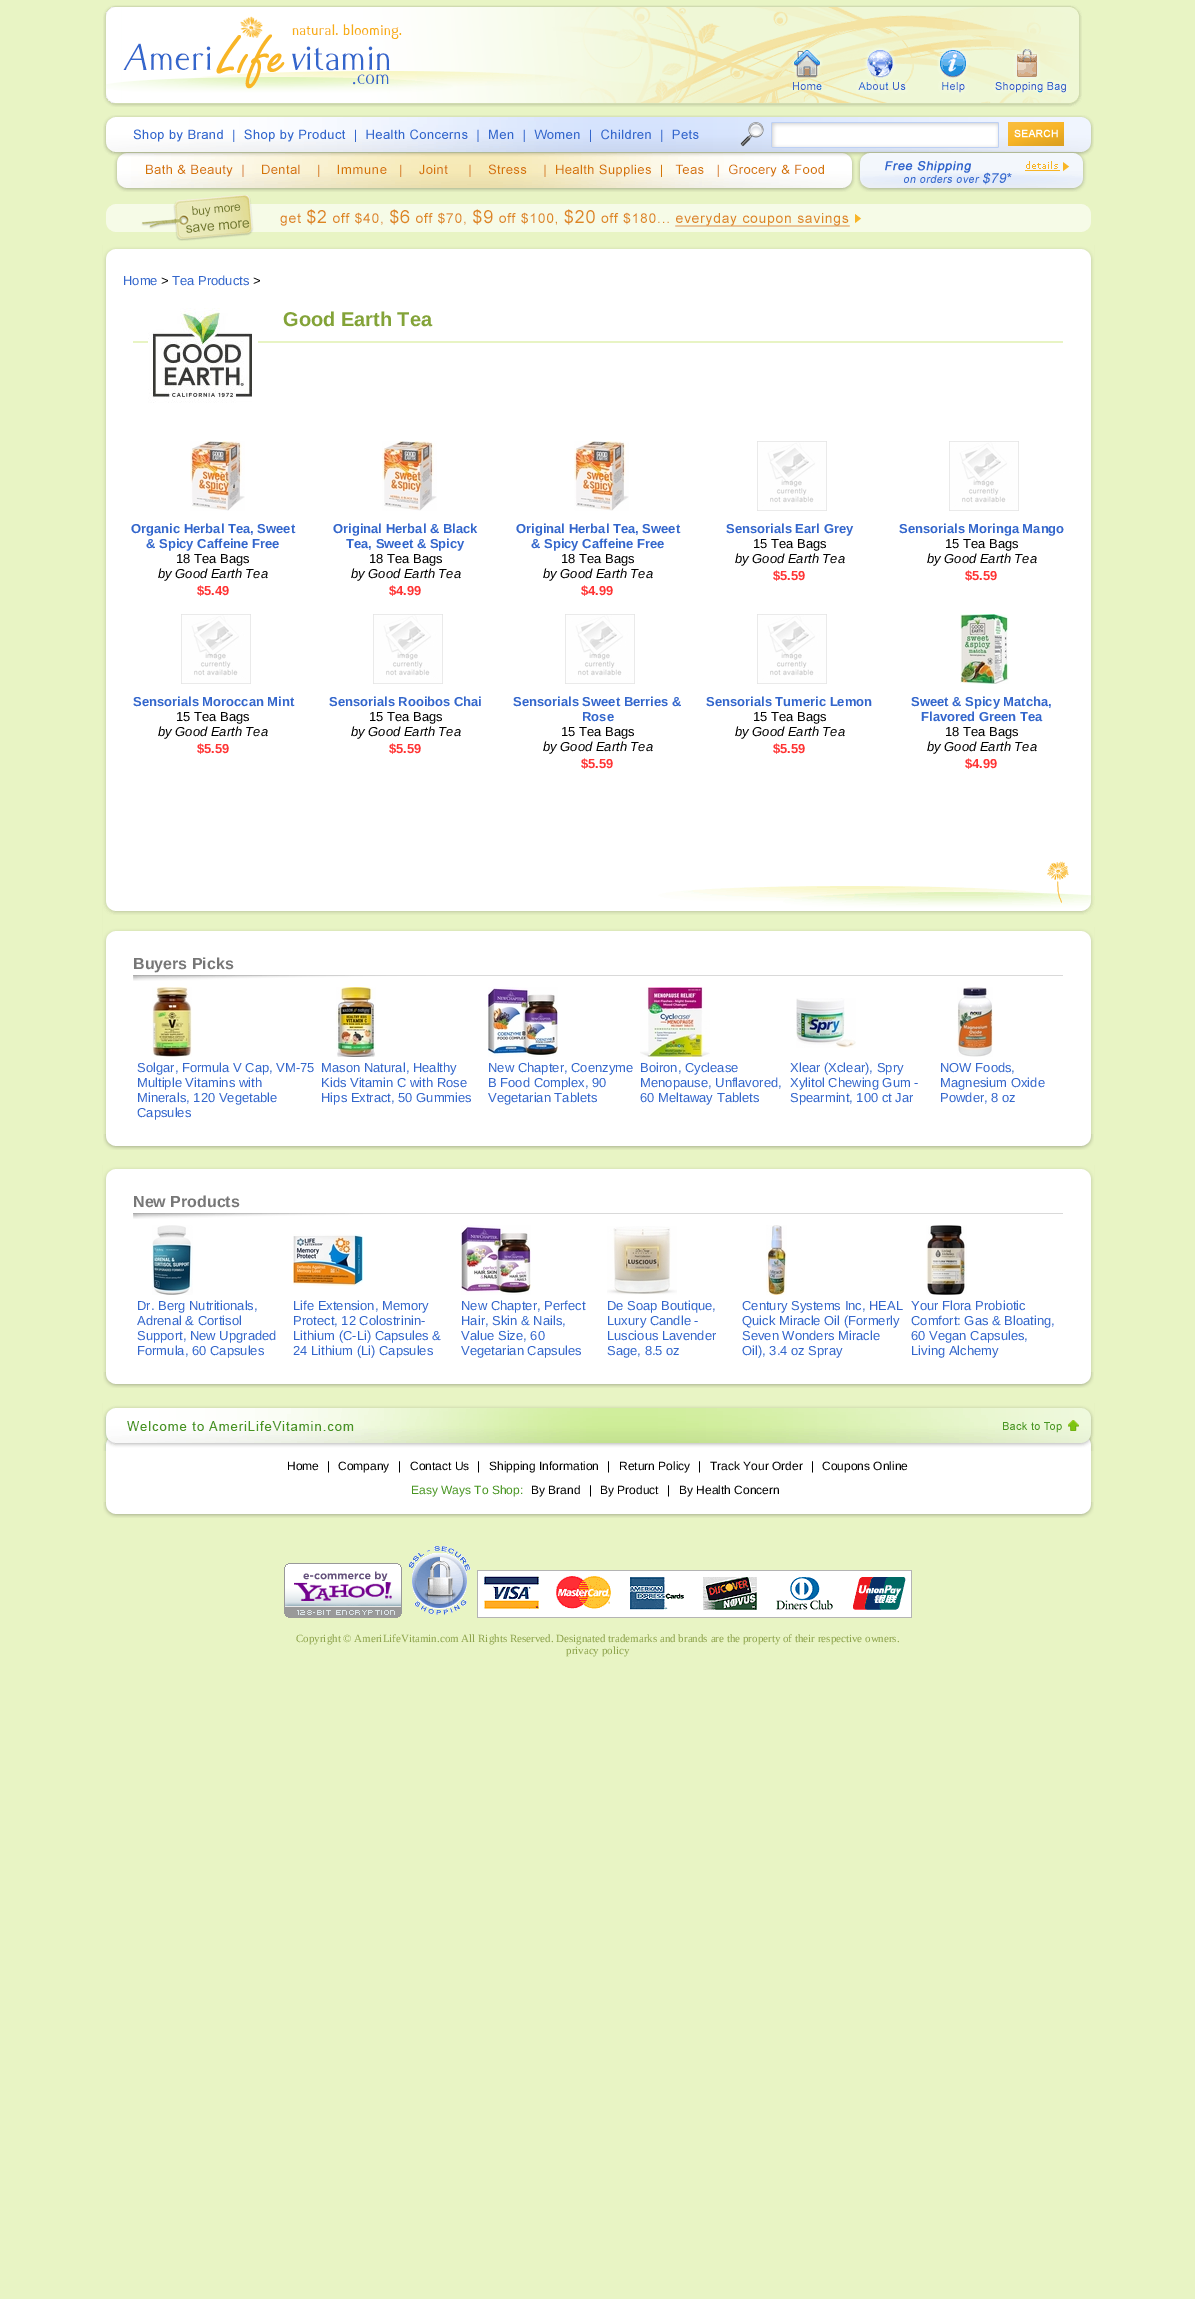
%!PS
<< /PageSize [1195 2299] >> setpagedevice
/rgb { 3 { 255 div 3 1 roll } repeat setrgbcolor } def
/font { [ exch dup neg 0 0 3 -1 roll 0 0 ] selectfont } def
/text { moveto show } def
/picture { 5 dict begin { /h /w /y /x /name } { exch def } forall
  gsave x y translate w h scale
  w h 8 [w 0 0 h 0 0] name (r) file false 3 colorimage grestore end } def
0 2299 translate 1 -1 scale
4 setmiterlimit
232 244 196 rgb
0 0 1195 2299 rectfill
(img_01.rgb) 103 5 314 102 picture
(img_02.rgb) 417 5 355 102 picture
(img_03.rgb) 772 5 310 102 picture
(img_04.rgb) 103 115 634 38 picture
(img_05.rgb) 737 115 357 38 picture
(img_06.rgb) 740 122 39 26 picture
(img_07.rgb) 779 122 212 26 picture
(img_08.rgb) 991 122 8 26 picture
(img_09.rgb) 1008 122 56 24 picture
(img_10.rgb) 108 153 748 39 picture
(img_11.rgb) 856 153 233 39 picture
(img_12.rgb) 106 195 985 46 picture
(img_13.rgb) 98 245 1000 682 picture
(img_14.rgb) 103 245 991 14 picture
133 341 930 2 rectfill
(img_15.rgb) 148 308 110 95 picture
(img_16.rgb) 190 441 55 70 picture
(img_17.rgb) 382 441 55 70 picture
(img_18.rgb) 574 441 55 70 picture
(img_19.rgb) 757 441 70 70 picture
(img_19.rgb) 949 441 70 70 picture
(img_19.rgb) 181 614 70 70 picture
(img_19.rgb) 373 614 70 70 picture
(img_19.rgb) 565 614 70 70 picture
(img_19.rgb) 757 614 70 70 picture
(img_20.rgb) 960 614 49 70 picture
(img_21.rgb) 103 861 992 66 picture
(img_22.rgb) 98 927 1000 18 picture
(img_14.rgb) 103 927 991 14 picture
(img_23.rgb) 98 945 1000 189 picture
(img_24.rgb) 133 975 930 6 picture
(img_25.rgb) 152 987 40 70 picture
(img_26.rgb) 336 987 40 70 picture
(img_27.rgb) 488 987 70 70 picture
(img_28.rgb) 640 987 70 70 picture
(img_29.rgb) 796 998 60 50 picture
(img_30.rgb) 957 987 36 70 picture
(img_31.rgb) 103 1134 991 16 picture
(img_22.rgb) 98 1165 1000 18 picture
(img_14.rgb) 103 1165 991 14 picture
(img_23.rgb) 98 1183 1000 189 picture
(img_24.rgb) 133 1213 930 6 picture
(img_32.rgb) 152 1225 41 70 picture
(img_33.rgb) 293 1234 70 52 picture
(img_34.rgb) 461 1225 70 70 picture
(img_35.rgb) 607 1226 70 69 picture
(img_36.rgb) 766 1225 21 70 picture
(img_37.rgb) 926 1225 41 70 picture
(img_31.rgb) 103 1372 991 16 picture
(img_38.rgb) 98 1403 1000 99 picture
(img_39.rgb) 103 1403 892 48 picture
(img_40.rgb) 995 1403 99 48 picture
(img_31.rgb) 103 1502 991 16 picture
(img_41.rgb) 284 1563 118 55 picture
(img_42.rgb) 409 1546 62 69 picture
(img_43.rgb) 477 1570 435 48 picture
/LiberationSans-Regular 13 font
51 102 204 rgb
(Home) 123 285 text
0 0 0 rgb
(>) 161 285 text
51 102 204 rgb
(Tea Products) 172 285 text
0 0 0 rgb
(>) 253 285 text
/LiberationSans-Bold 20 font
131 163 56 rgb
(Good Earth Tea) 283 326 text
/LiberationSans-Bold 13 font
51 102 204 rgb
(Organic Herbal Tea, Sweet) 131 533 text
(& Spicy Caffeine Free) 146 548 text
/LiberationSans-Regular 13 font
0 0 0 rgb
(18 Tea Bags) 176 563 text
/LiberationSans-Italic 13 font
(by Good Earth Tea) 158 578 text
/LiberationSans-Bold 13 font
255 51 51 rgb
($5.49) 197 595 text
51 102 204 rgb
(Original Herbal & Black) 333 533 text
(Tea, Sweet & Spicy) 346 548 text
/LiberationSans-Regular 13 font
0 0 0 rgb
(18 Tea Bags) 369 563 text
/LiberationSans-Italic 13 font
(by Good Earth Tea) 351 578 text
/LiberationSans-Bold 13 font
255 51 51 rgb
($4.99) 389 595 text
51 102 204 rgb
(Original Herbal Tea, Sweet) 516 533 text
(& Spicy Caffeine Free) 531 548 text
/LiberationSans-Regular 13 font
0 0 0 rgb
(18 Tea Bags) 561 563 text
/LiberationSans-Italic 13 font
(by Good Earth Tea) 543 578 text
/LiberationSans-Bold 13 font
255 51 51 rgb
($4.99) 581 595 text
51 102 204 rgb
(Sensorials Earl Grey) 726 533 text
/LiberationSans-Regular 13 font
0 0 0 rgb
(15 Tea Bags) 753 548 text
/LiberationSans-Italic 13 font
(by Good Earth Tea) 735 563 text
/LiberationSans-Bold 13 font
255 51 51 rgb
($5.59) 773 580 text
51 102 204 rgb
(Sensorials Moringa Mango) 899 533 text
/LiberationSans-Regular 13 font
0 0 0 rgb
(15 Tea Bags) 945 548 text
/LiberationSans-Italic 13 font
(by Good Earth Tea) 927 563 text
/LiberationSans-Bold 13 font
255 51 51 rgb
($5.59) 965 580 text
51 102 204 rgb
(Sensorials Moroccan Mint) 133 706 text
/LiberationSans-Regular 13 font
0 0 0 rgb
(15 Tea Bags) 176 721 text
/LiberationSans-Italic 13 font
(by Good Earth Tea) 158 736 text
/LiberationSans-Bold 13 font
255 51 51 rgb
($5.59) 197 753 text
51 102 204 rgb
(Sensorials Rooibos Chai) 329 706 text
/LiberationSans-Regular 13 font
0 0 0 rgb
(15 Tea Bags) 369 721 text
/LiberationSans-Italic 13 font
(by Good Earth Tea) 351 736 text
/LiberationSans-Bold 13 font
255 51 51 rgb
($5.59) 389 753 text
51 102 204 rgb
(Sensorials Sweet Berries &) 513 706 text
(Rose) 582 721 text
/LiberationSans-Regular 13 font
0 0 0 rgb
(15 Tea Bags) 561 736 text
/LiberationSans-Italic 13 font
(by Good Earth Tea) 543 751 text
/LiberationSans-Bold 13 font
255 51 51 rgb
($5.59) 581 768 text
51 102 204 rgb
(Sensorials Tumeric Lemon) 706 706 text
/LiberationSans-Regular 13 font
0 0 0 rgb
(15 Tea Bags) 753 721 text
/LiberationSans-Italic 13 font
(by Good Earth Tea) 735 736 text
/LiberationSans-Bold 13 font
255 51 51 rgb
($5.59) 773 753 text
51 102 204 rgb
(Sweet & Spicy Matcha,) 911 706 text
(Flavored Green Tea) 921 721 text
/LiberationSans-Regular 13 font
0 0 0 rgb
(18 Tea Bags) 945 736 text
/LiberationSans-Italic 13 font
(by Good Earth Tea) 927 751 text
/LiberationSans-Bold 13 font
255 51 51 rgb
($4.99) 965 768 text
/LiberationSans-Bold 16 font
119 119 119 rgb
(Buyers Picks) 133 969 text
/LiberationSans-Regular 13 font
51 102 204 rgb
(Solgar, Formula V Cap, VM-75) 137 1072 text
(Multiple Vitamins with) 137 1087 text
(Minerals, 120 Vegetable) 137 1102 text
(Capsules) 137 1117 text
(Mason Natural, Healthy) 321 1072 text
(Kids Vitamin C with Rose) 321 1087 text
(Hips Extract, 50 Gummies) 321 1102 text
(New Chapter, Coenzyme) 488 1072 text
(B Food Complex, 90) 488 1087 text
(Vegetarian Tablets) 488 1102 text
(Boiron, Cyclease) 640 1072 text
(Menopause, Unflavored,) 640 1087 text
(60 Meltaway Tablets) 640 1102 text
(Xlear \(Xclear\), Spry) 790 1072 text
(Xylitol Chewing Gum -) 790 1087 text
(Spearmint, 100 ct Jar) 790 1102 text
(NOW Foods,) 940 1072 text
(Magnesium Oxide) 940 1087 text
(Powder, 8 oz) 940 1102 text
/LiberationSans-Bold 16 font
119 119 119 rgb
(New Products) 133 1207 text
/LiberationSans-Regular 13 font
51 102 204 rgb
(Dr. Berg Nutritionals,) 137 1310 text
(Adrenal & Cortisol) 137 1325 text
(Support, New Upgraded) 137 1340 text
(Formula, 60 Capsules) 137 1355 text
(Life Extension, Memory) 293 1310 text
(Protect, 12 Colostrinin-) 293 1325 text
(Lithium \(C-Li\) Capsules &) 293 1340 text
(24 Lithium \(Li\) Capsules) 293 1355 text
(New Chapter, Perfect) 461 1310 text
(Hair, Skin & Nails,) 461 1325 text
(Value Size, 60) 461 1340 text
(Vegetarian Capsules) 461 1355 text
(De Soap Boutique,) 607 1310 text
(Luxury Candle -) 607 1325 text
(Luscious Lavender) 607 1340 text
(Sage, 8.5 oz) 607 1355 text
(Century Systems Inc, HEAL) 742 1310 text
(Quick Miracle Oil \(Formerly) 742 1325 text
(Seven Wonders Miracle) 742 1340 text
(Oil\), 3.4 oz Spray) 742 1355 text
(Your Flora Probiotic) 911 1310 text
(Comfort: Gas & Bloating,) 911 1325 text
(60 Vegan Capsules,) 911 1340 text
(Living Alchemy) 911 1355 text
/LiberationSans-Regular 12 font
0 0 0 rgb
(Home) 287 1470 text
(|) 327 1470 text
(Company) 338 1470 text
(|) 398 1470 text
(Contact Us) 410 1470 text
(|) 477 1470 text
(Shipping Information) 489 1470 text
(|) 607 1470 text
(Return Policy) 619 1470 text
(|) 698 1470 text
(Track Your Order) 710 1470 text
(|) 811 1470 text
(Coupons Online) 822 1470 text
72 149 33 rgb
(Easy Ways To Shop:) 411 1494 text
0 0 0 rgb
(By Brand) 531 1494 text
(|) 589 1494 text
(By Product) 600 1494 text
(|) 667 1494 text
(By Health Concern) 679 1494 text
/LiberationSerif-Regular 11 font
141 163 75 rgb
(Copyright © AmeriLifeVitamin.com All Rights Reserved. Designated trademarks and brands are the property of their respective owners.) 296 1642 text
(privacy policy) 566 1654 text
showpage
